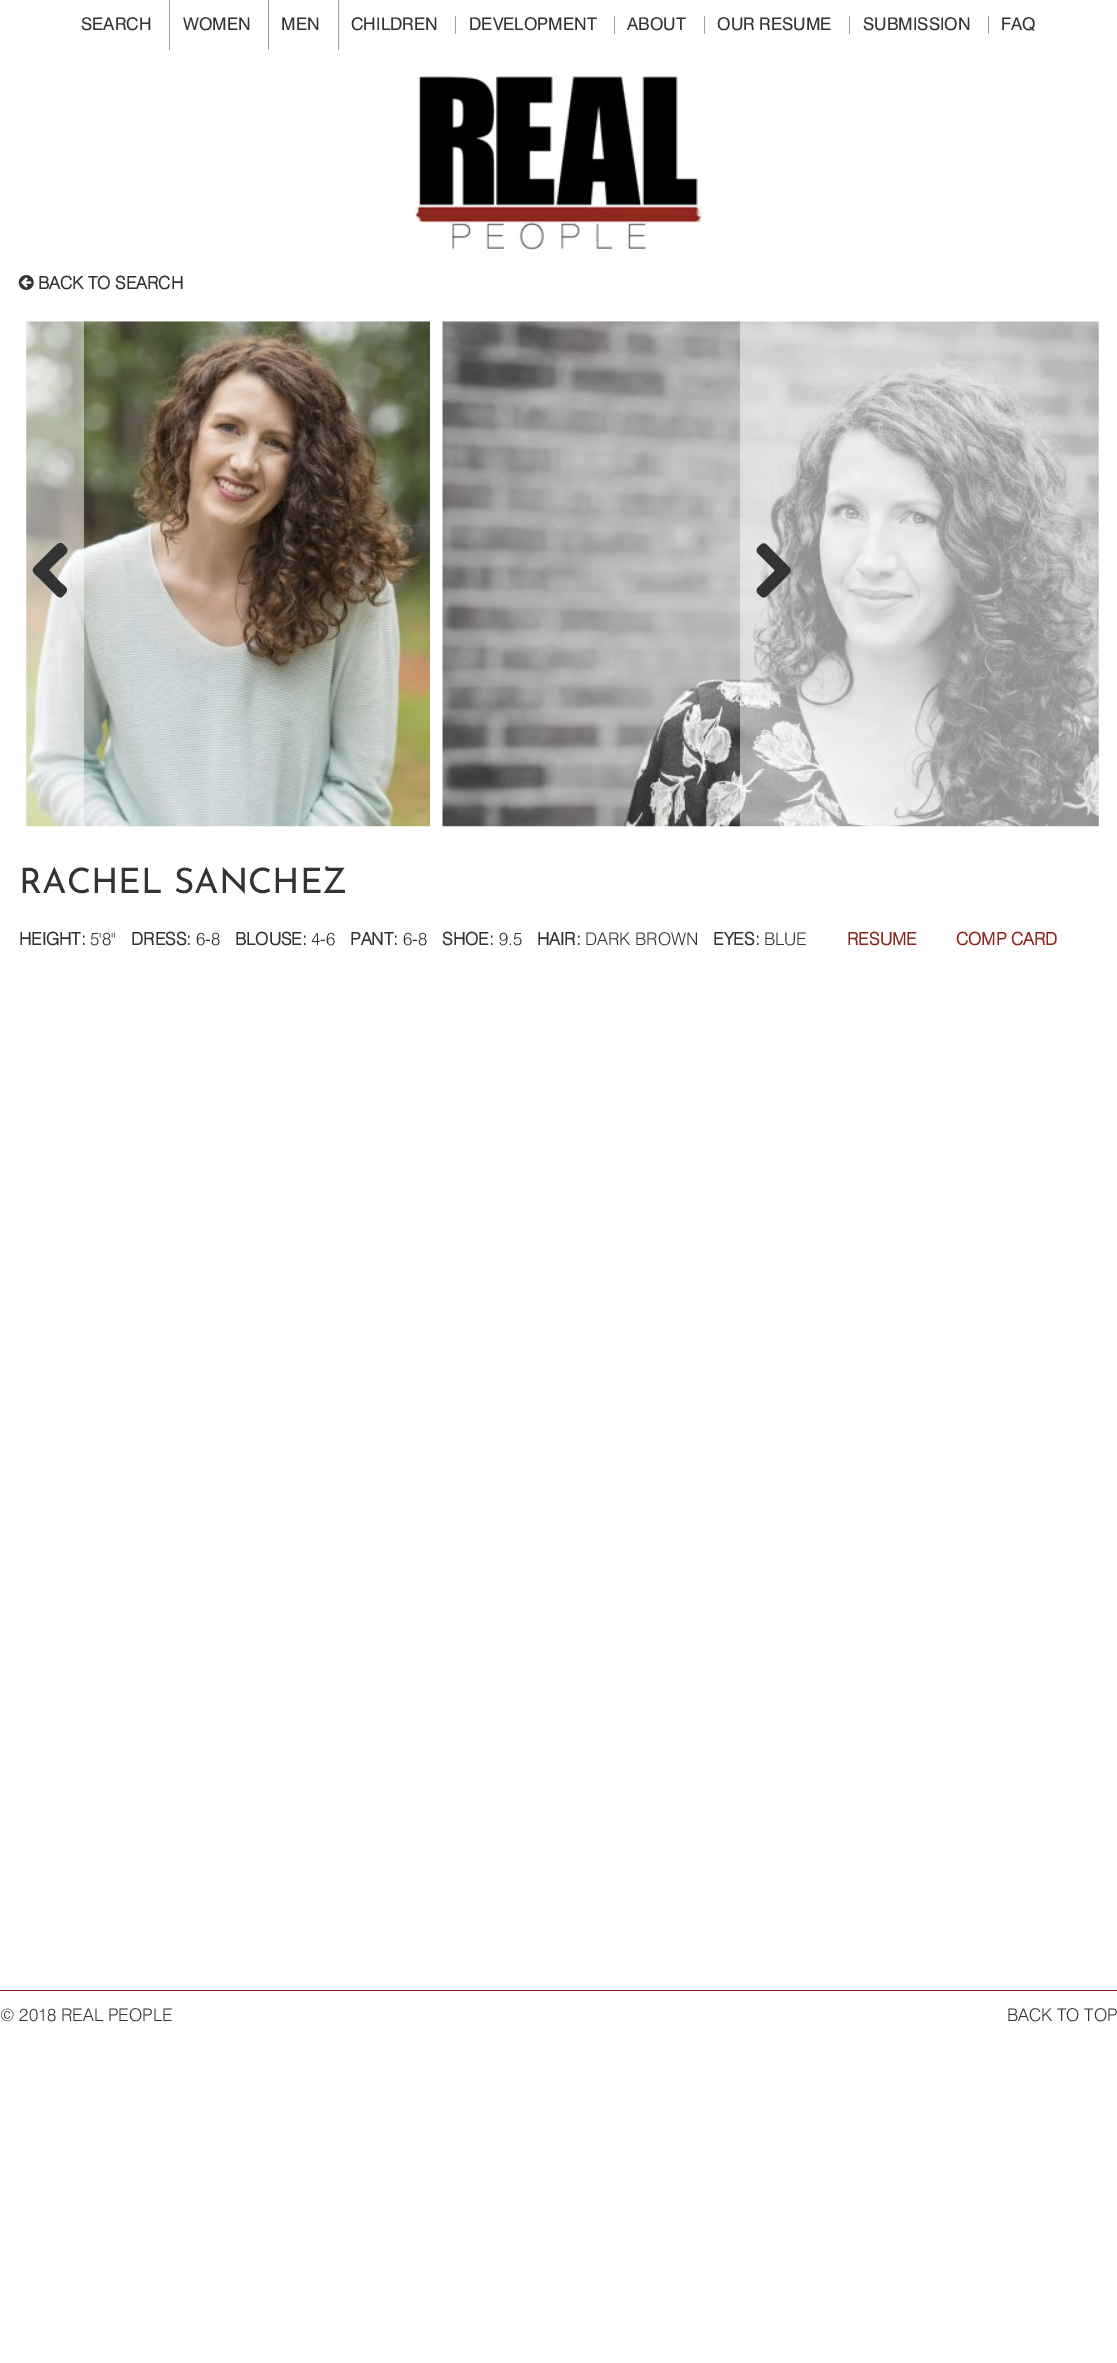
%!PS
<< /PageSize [1117 2363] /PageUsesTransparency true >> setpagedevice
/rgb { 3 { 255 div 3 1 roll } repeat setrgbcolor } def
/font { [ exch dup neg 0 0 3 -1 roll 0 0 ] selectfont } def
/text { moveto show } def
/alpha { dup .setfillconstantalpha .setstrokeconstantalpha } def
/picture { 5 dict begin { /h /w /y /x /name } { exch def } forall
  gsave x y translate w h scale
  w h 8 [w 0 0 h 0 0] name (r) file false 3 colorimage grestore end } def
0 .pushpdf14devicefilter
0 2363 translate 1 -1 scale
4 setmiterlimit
255 255 255 rgb
0 0 1117 2363 rectfill
160 160 160 rgb
169 0 1 50 rectfill
268 0 1 50 rectfill
338 0 1 50 rectfill
455 16 1 18 rectfill
614 16 1 18 rectfill
704 16 1 18 rectfill
849 16 1 18 rectfill
988 16 1 18 rectfill
(img_01.rgb) 415 75 288 176 picture
(img_02.rgb) 18 275 16 15 picture
(img_03.rgb) 26 321 404 506 picture
0.5 alpha
255 255 255 rgb
26 321 58 506 rectfill
1 alpha
51 51 51 rgb
57 596 moveto -19 -19 rlineto -7 -6 -7 -7 0 -14 rcurveto 15 -15 rlineto 3 -2 6 -7 10 -4 rcurveto 8 7 4 9 -3 15 rcurveto -11 11 rlineto 11 12 rlineto 7 6 10 7 3 14 rcurveto -1 1 -2 2 -4 1 rcurveto closepath fill
(img_04.rgb) 442 321 657 506 picture
0.5 alpha
255 255 255 rgb
740 321 359 506 rectfill
1 alpha
(img_05.rgb) 756 543 35 55 picture
140 39 31 rgb
0 1990 1117 1 rectfill
/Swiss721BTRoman-Regular 17.5 font
51 51 51 rgb
(SEARCH) 81 30 text
(WOMEN) 183 30 text
(MEN) 281 30 text
(CHILDREN) 351 30 text
(DEVELOPMENT) 469 30 text
(ABOUT) 627 30 text
(OUR RESUME) 717 30 text
(SUBMISSION) 863 30 text
(FAQ) 1001 30 text
/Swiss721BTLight-Bold 17.5 font
(BACK TO SEARCH) 38 289 text
/JosefinSans-Thin 35 font
(RACHEL SANCHEZ) 19 893 text
/Swiss721BTLight-Bold 17.5 font
(HEIGHT:) 19 945 text
/Swiss721BTLight-Light 17.5 font
(5'8") 90 945 text
/Swiss721BTLight-Bold 17.5 font
(DRESS:) 131 945 text
/Swiss721BTLight-Light 17.5 font
(6-8) 196 945 text
/Swiss721BTLight-Bold 17.5 font
(BLOUSE:) 235 945 text
/Swiss721BTLight-Light 17.5 font
(4-6) 311 945 text
/Swiss721BTLight-Bold 17.5 font
(PANT:) 350 945 text
/Swiss721BTLight-Light 17.5 font
(6-8) 403 945 text
/Swiss721BTLight-Bold 17.5 font
(SHOE:) 442 945 text
/Swiss721BTLight-Light 17.5 font
(9.5) 499 945 text
/Swiss721BTLight-Bold 17.5 font
(HAIR:) 537 945 text
/Swiss721BTLight-Light 17.5 font
(DARK BROWN) 585 945 text
/Swiss721BTLight-Bold 17.5 font
(EYES:) 713 945 text
/Swiss721BTLight-Light 17.5 font
(BLUE) 764 945 text
/Swiss721BTLight-Bold 17.5 font
140 39 31 rgb
(RESUME) 847 945 text
(COMP CARD) 956 945 text
/Swiss721BTLight-Light 17.5 font
51 51 51 rgb
(© 2018 REAL PEOPLE) 0 2021 text
(BACK TO TOP) 1007 2021 text
.poppdf14devicefilter showpage
